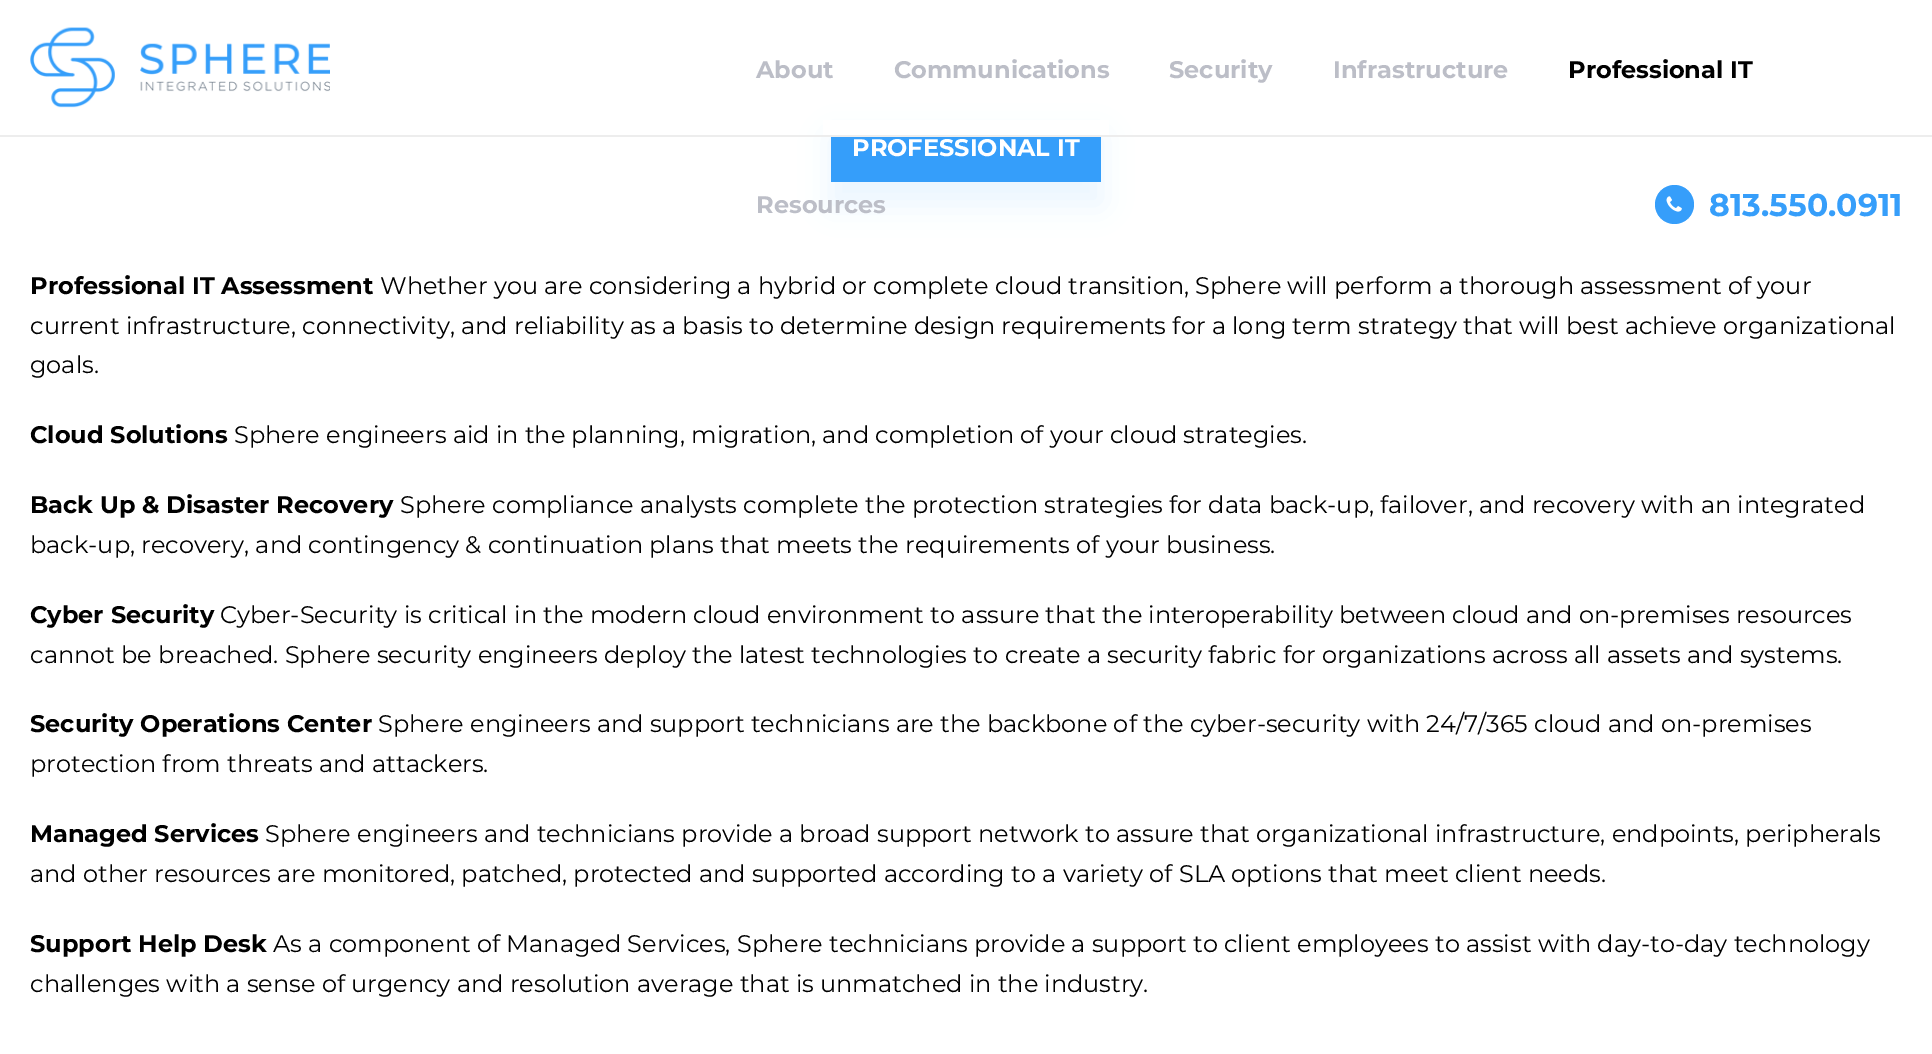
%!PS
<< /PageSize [1932 1054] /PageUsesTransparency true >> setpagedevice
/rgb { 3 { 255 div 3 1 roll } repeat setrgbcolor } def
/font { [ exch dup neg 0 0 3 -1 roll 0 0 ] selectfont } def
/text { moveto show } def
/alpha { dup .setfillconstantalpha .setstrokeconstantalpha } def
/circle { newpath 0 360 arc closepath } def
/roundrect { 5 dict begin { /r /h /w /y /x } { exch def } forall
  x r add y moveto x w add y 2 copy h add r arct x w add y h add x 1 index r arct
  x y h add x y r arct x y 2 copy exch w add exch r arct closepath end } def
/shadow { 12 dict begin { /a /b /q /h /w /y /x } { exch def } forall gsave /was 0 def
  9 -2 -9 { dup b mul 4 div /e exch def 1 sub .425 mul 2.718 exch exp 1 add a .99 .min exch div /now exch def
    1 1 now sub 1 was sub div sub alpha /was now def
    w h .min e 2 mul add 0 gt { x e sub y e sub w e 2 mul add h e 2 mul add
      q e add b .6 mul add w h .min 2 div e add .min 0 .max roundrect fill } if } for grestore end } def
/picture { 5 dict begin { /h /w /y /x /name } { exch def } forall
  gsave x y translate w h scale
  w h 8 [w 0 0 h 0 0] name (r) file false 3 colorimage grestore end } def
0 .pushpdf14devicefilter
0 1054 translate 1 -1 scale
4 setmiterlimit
255 255 255 rgb
0 0 1932 1054 rectfill
53 158 250 rgb
831 137 270 67 0 15 0.1 shadow
237 237 237 rgb
0 135 1932 2 rectfill
(img_01.rgb) 30 27 300 81 picture
54 158 250 rgb
1674.5 204.5 19.5 circle fill
(img_02.rgb) 1666 196 16 16 picture
255 255 255 rgb
823 120 286 15 rectfill
53 158 250 rgb
831 137 270 45 rectfill
/Montserrat-Bold 24 font
188 190 199 rgb
(About) 756 78 text
(Communications) 894 78 text
(Security) 1169 78 text
(Infrastructure) 1333 78 text
0 0 0 rgb
(Professional IT) 1568 78 text
188 190 199 rgb
(Resources) 756 213 text
/Montserrat-Bold 31.5 font
54 158 250 rgb
(813.550.0911) 1709 216 text
/Montserrat-Bold 24 font
255 255 255 rgb
(PROFESSIONAL IT) 852 156 text
0 0 0 rgb
(Professional IT Assessment) 30 294 text
/Montserrat-Regular 24 font
(Whether you are considering a hybrid or complete cloud transition, Sphere will perform a thorough assessment of your) 380 294 text
(current infrastructure, connectivity, and reliability as a basis to determine design requirements for a long term strategy that will best achieve organizational) 30 334 text
(goals.) 30 373 text
/Montserrat-Bold 24 font
(Cloud Solutions) 30 443 text
/Montserrat-Regular 24 font
(Sphere engineers aid in the planning, migration, and completion of your cloud strategies.) 234 443 text
/Montserrat-Bold 24 font
(Back Up & Disaster Recovery) 30 513 text
/Montserrat-Regular 24 font
(Sphere compliance analysts complete the protection strategies for data back-up, failover, and recovery with an integrated) 400 513 text
(back-up, recovery, and contingency & continuation plans that meets the requirements of your business.) 30 553 text
/Montserrat-Bold 24 font
(Cyber Security) 30 623 text
/Montserrat-Regular 24 font
(Cyber-Security is critical in the modern cloud environment to assure that the interoperability between cloud and on-premises resources) 220 623 text
(cannot be breached. Sphere security engineers deploy the latest technologies to create a security fabric for organizations across all assets and systems.) 30 663 text
/Montserrat-Bold 24 font
(Security Operations Center) 30 732 text
/Montserrat-Regular 24 font
(Sphere engineers and support technicians are the backbone of the cyber-security with 24/7/365 cloud and on-premises) 378 732 text
(protection from threats and attackers.) 30 772 text
/Montserrat-Bold 24 font
(Managed Services) 30 842 text
/Montserrat-Regular 24 font
(Sphere engineers and technicians provide a broad support network to assure that organizational infrastructure, endpoints, peripherals) 265 842 text
(and other resources are monitored, patched, protected and supported according to a variety of SLA options that meet client needs.) 30 882 text
/Montserrat-Bold 24 font
(Support Help Desk) 30 952 text
/Montserrat-Regular 24 font
(As a component of Managed Services, Sphere technicians provide a support to client employees to assist with day-to-day technology) 273 952 text
(challenges with a sense of urgency and resolution average that is unmatched in the industry.) 30 992 text
.poppdf14devicefilter showpage
